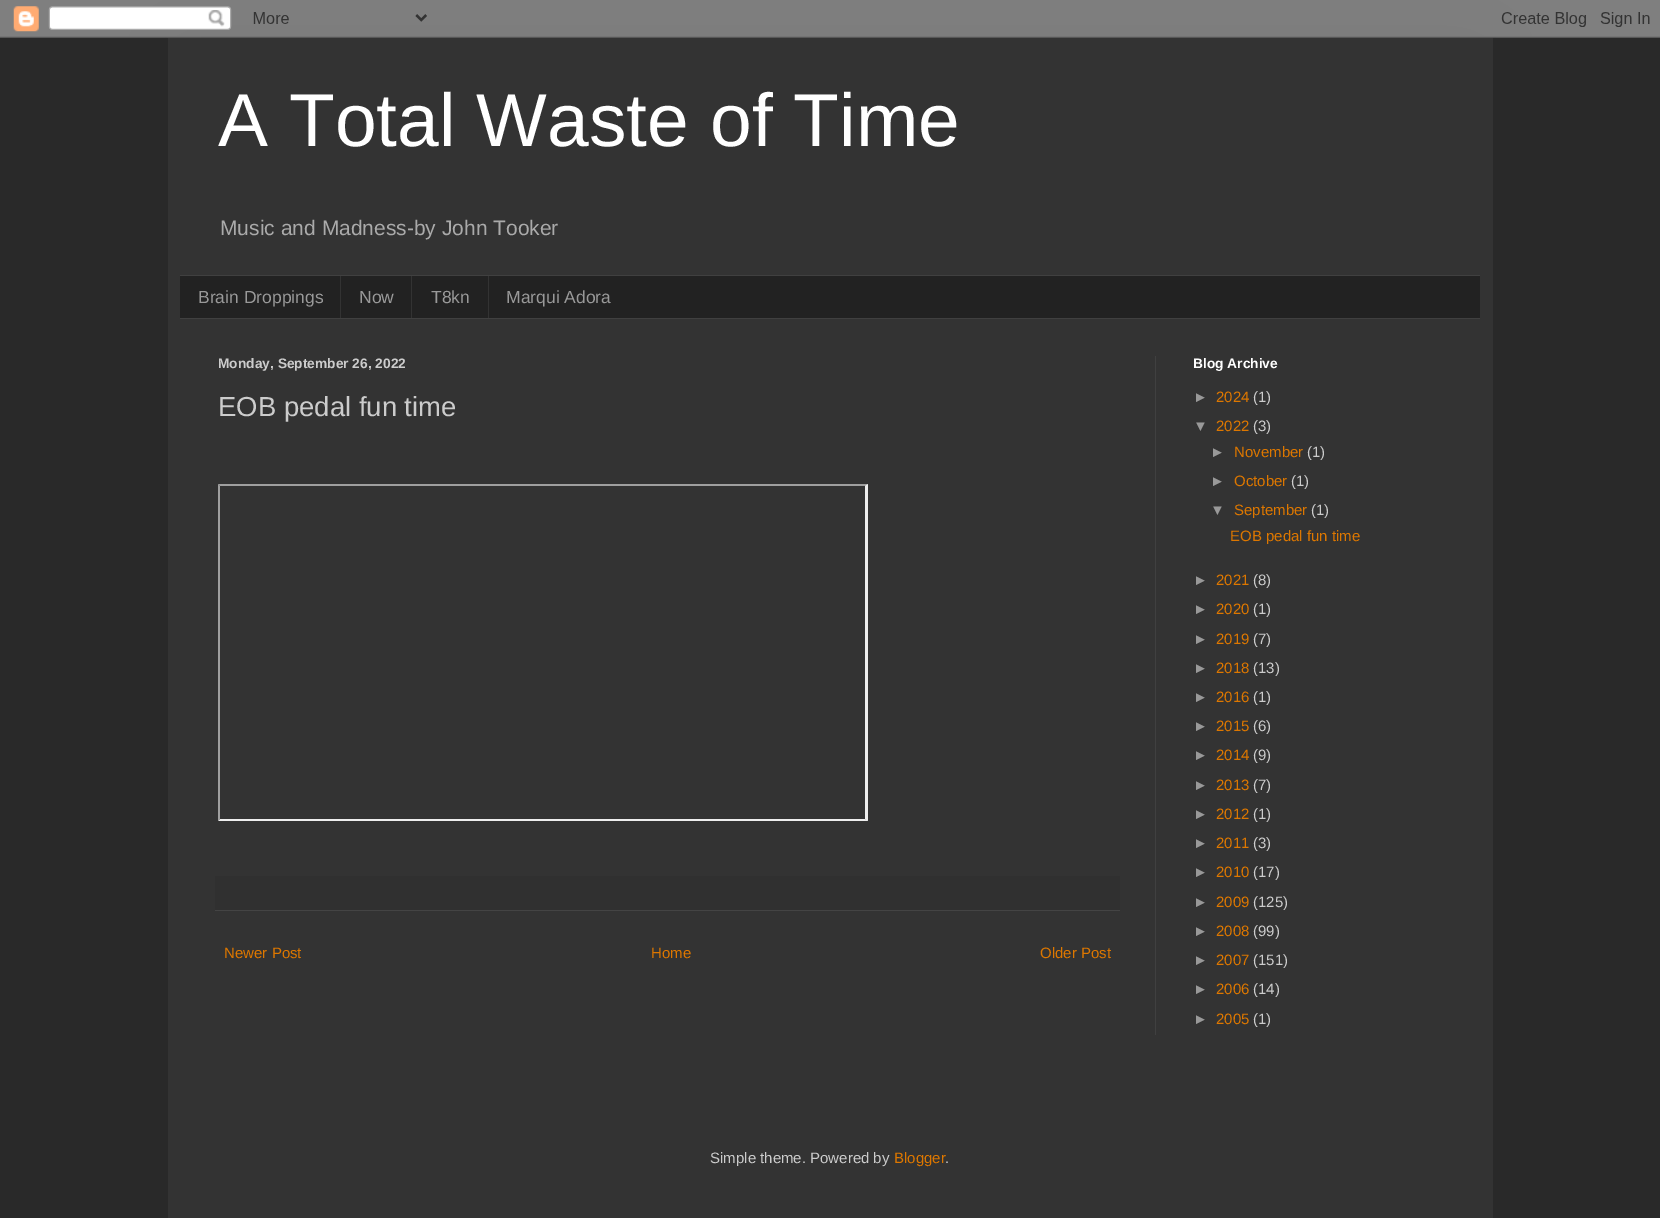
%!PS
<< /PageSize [1660 1218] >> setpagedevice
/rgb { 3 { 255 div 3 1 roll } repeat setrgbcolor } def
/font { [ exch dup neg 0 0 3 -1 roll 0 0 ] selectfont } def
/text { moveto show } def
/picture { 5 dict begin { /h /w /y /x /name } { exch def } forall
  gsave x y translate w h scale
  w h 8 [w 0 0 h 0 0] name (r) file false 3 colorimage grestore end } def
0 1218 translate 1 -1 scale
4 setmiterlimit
41 41 41 rgb
0 0 1660 1218 rectfill
(img_01.rgb) 0 0 1660 38 picture
51 51 51 rgb
168 38 1325 1180 rectfill
34 34 34 rgb
180 276 1300 42 rectfill
64 64 64 rgb
180 275 1300 1 rectfill
180 318 1300 1 rectfill
51 51 51 rgb
340 276 1 42 rectfill
411 276 1 42 rectfill
488 276 1 42 rectfill
64 64 64 rgb
1155 356 1 679 rectfill
159 159 159 rgb
218 484 moveto 650 0 rlineto -3 2 rlineto -645 0 rlineto closepath fill
238 238 238 rgb
868 484 moveto 0 337 rlineto -3 -2 rlineto 0 -333 rlineto closepath fill
868 821 moveto -650 0 rlineto 2 -2 rlineto 645 0 rlineto closepath fill
159 159 159 rgb
218 821 moveto 0 -337 rlineto 2 2 rlineto 0 333 rlineto closepath fill
48 48 48 rgb
215 876 905 34 rectfill
68 68 68 rgb
215 910 905 1 rectfill
/LiberationSans-Regular 75 font
255 255 255 rgb
(A Total Waste of Time) 218 146 text
/LiberationSans-Regular 21 font
170 170 170 rgb
(Music and Madness-by John Tooker) 220 235 text
/LiberationSans-Regular 17.5 font
153 153 153 rgb
(Brain Droppings) 198 303 text
(Now) 359 303 text
(T8kn) 431 303 text
(Marqui Adora) 506 303 text
/LiberationSans-Bold 13.75 font
204 204 204 rgb
(Monday, September 26, 2022) 218 368 text
/LiberationSans-Regular 27.5 font
(EOB pedal fun time) 218 416 text
/LiberationSans-Regular 15 font
221 119 0 rgb
(Newer Post) 224 958 text
(Home) 651 958 text
(Older Post) 1040 958 text
/LiberationSans-Bold 13.75 font
255 255 255 rgb
(Blog Archive) 1193 368 text
/LiberationSans-Regular 15 font
153 153 153 rgb
(►) 1193 402 text
221 119 0 rgb
(2024) 1216 402 text
204 204 204 rgb
(\(1\)) 1253 402 text
153 153 153 rgb
(▼) 1193 431 text
221 119 0 rgb
(2022) 1216 431 text
204 204 204 rgb
(\(3\)) 1253 431 text
153 153 153 rgb
(►) 1210 457 text
221 119 0 rgb
(November) 1234 457 text
204 204 204 rgb
(\(1\)) 1307 457 text
153 153 153 rgb
(►) 1210 486 text
221 119 0 rgb
(October) 1234 486 text
204 204 204 rgb
(\(1\)) 1291 486 text
153 153 153 rgb
(▼) 1210 515 text
221 119 0 rgb
(September) 1234 515 text
204 204 204 rgb
(\(1\)) 1311 515 text
221 119 0 rgb
(EOB pedal fun time) 1230 541 text
153 153 153 rgb
(►) 1193 585 text
221 119 0 rgb
(2021) 1216 585 text
204 204 204 rgb
(\(8\)) 1253 585 text
153 153 153 rgb
(►) 1193 614 text
221 119 0 rgb
(2020) 1216 614 text
204 204 204 rgb
(\(1\)) 1253 614 text
153 153 153 rgb
(►) 1193 644 text
221 119 0 rgb
(2019) 1216 644 text
204 204 204 rgb
(\(7\)) 1253 644 text
153 153 153 rgb
(►) 1193 673 text
221 119 0 rgb
(2018) 1216 673 text
204 204 204 rgb
(\(13\)) 1253 673 text
153 153 153 rgb
(►) 1193 702 text
221 119 0 rgb
(2016) 1216 702 text
204 204 204 rgb
(\(1\)) 1253 702 text
153 153 153 rgb
(►) 1193 731 text
221 119 0 rgb
(2015) 1216 731 text
204 204 204 rgb
(\(6\)) 1253 731 text
153 153 153 rgb
(►) 1193 760 text
221 119 0 rgb
(2014) 1216 760 text
204 204 204 rgb
(\(9\)) 1253 760 text
153 153 153 rgb
(►) 1193 790 text
221 119 0 rgb
(2013) 1216 790 text
204 204 204 rgb
(\(7\)) 1253 790 text
153 153 153 rgb
(►) 1193 819 text
221 119 0 rgb
(2012) 1216 819 text
204 204 204 rgb
(\(1\)) 1253 819 text
153 153 153 rgb
(►) 1193 848 text
221 119 0 rgb
(2011) 1216 848 text
204 204 204 rgb
(\(3\)) 1253 848 text
153 153 153 rgb
(►) 1193 877 text
221 119 0 rgb
(2010) 1216 877 text
204 204 204 rgb
(\(17\)) 1253 877 text
153 153 153 rgb
(►) 1193 907 text
221 119 0 rgb
(2009) 1216 907 text
204 204 204 rgb
(\(125\)) 1253 907 text
153 153 153 rgb
(►) 1193 936 text
221 119 0 rgb
(2008) 1216 936 text
204 204 204 rgb
(\(99\)) 1253 936 text
153 153 153 rgb
(►) 1193 965 text
221 119 0 rgb
(2007) 1216 965 text
204 204 204 rgb
(\(151\)) 1253 965 text
153 153 153 rgb
(►) 1193 994 text
221 119 0 rgb
(2006) 1216 994 text
204 204 204 rgb
(\(14\)) 1253 994 text
153 153 153 rgb
(►) 1193 1024 text
221 119 0 rgb
(2005) 1216 1024 text
204 204 204 rgb
(\(1\)) 1253 1024 text
(Simple theme. Powered by) 710 1163 text
221 119 0 rgb
(Blogger) 894 1163 text
204 204 204 rgb
(.) 945 1163 text
showpage
